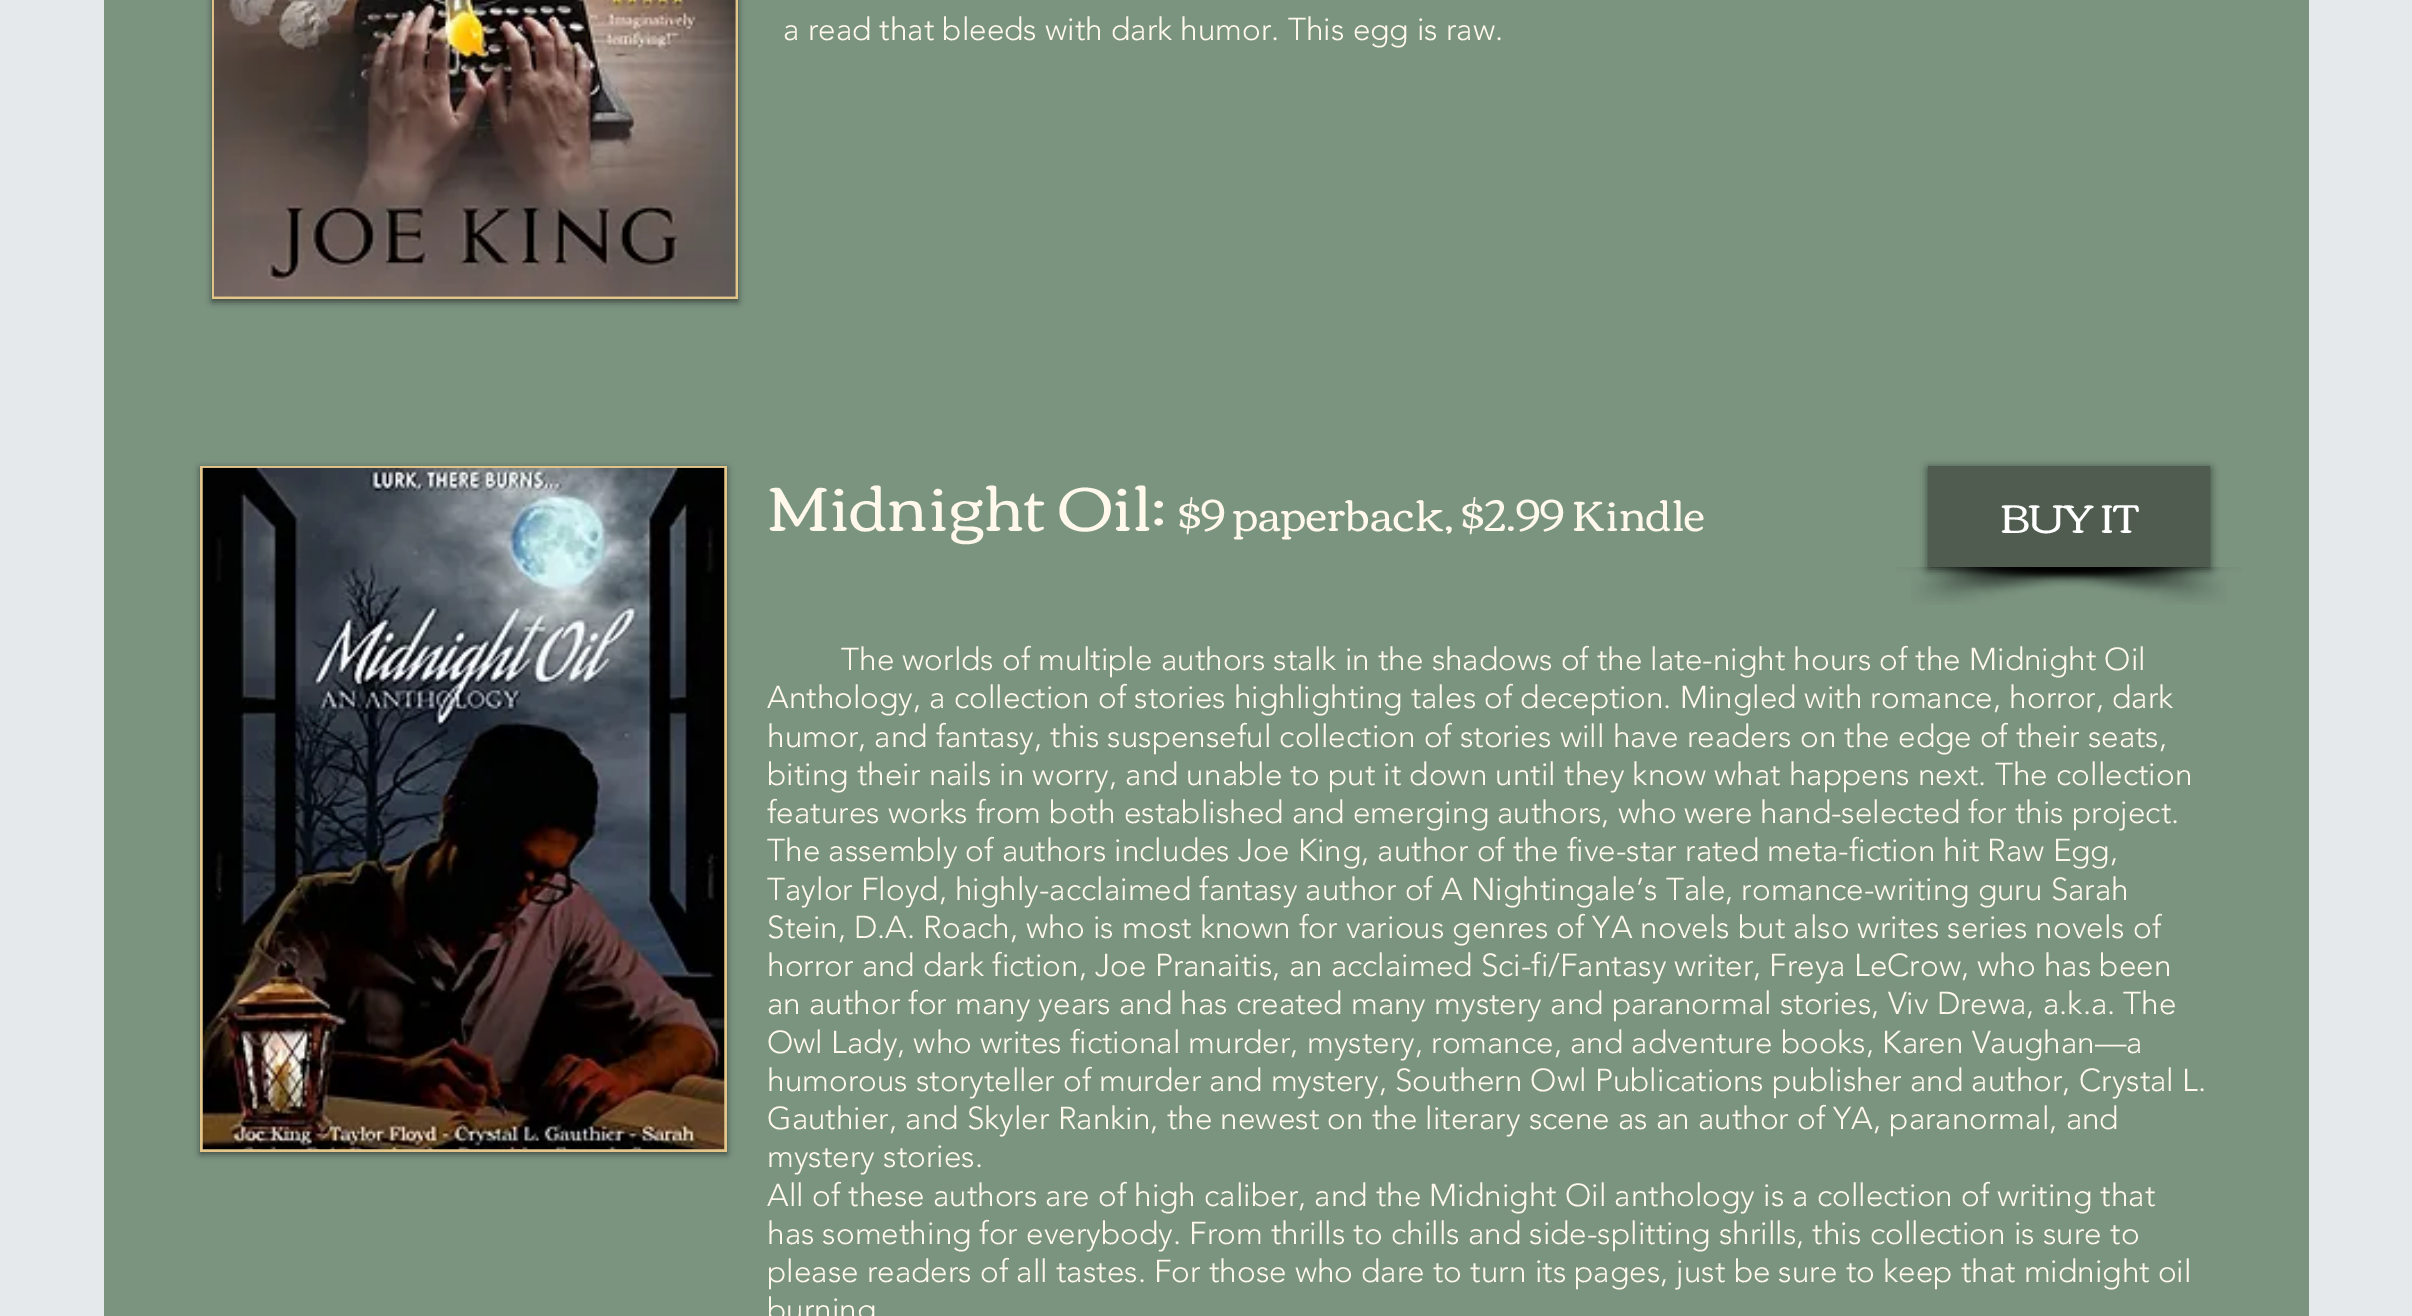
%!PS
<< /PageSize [2412 1316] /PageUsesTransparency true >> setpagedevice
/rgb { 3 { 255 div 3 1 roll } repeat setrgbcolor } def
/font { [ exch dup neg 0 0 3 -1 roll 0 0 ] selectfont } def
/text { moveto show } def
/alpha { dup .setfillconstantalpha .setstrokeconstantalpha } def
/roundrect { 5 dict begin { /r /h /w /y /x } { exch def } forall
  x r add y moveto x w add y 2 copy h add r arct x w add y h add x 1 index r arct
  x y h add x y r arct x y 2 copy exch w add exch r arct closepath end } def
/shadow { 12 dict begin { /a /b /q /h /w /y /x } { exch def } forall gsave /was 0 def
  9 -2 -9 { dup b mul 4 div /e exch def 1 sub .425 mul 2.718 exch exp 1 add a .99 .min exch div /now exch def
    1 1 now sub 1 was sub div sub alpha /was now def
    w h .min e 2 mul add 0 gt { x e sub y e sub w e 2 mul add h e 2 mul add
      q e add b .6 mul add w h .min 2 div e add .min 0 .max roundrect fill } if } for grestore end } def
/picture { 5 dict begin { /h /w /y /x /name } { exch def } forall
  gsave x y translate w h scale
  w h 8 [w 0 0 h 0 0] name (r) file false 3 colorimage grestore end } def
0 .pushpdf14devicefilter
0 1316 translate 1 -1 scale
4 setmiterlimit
230 233 235 rgb
0 0 2412 1316 rectfill
123 148 128 rgb
104 0 2205 1316 rectfill
0 0 0 rgb
212 -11 526 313 0 3.5 0.5 shadow
228 197 138 rgb
212 0 526 299 rectfill
(img_01.rgb) 213 0 523 297 picture
0 0 0 rgb
200 468 527 686 0 3.5 0.5 shadow
228 197 138 rgb
200 466 527 686 rectfill
(img_02.rgb) 202 467 523 683 picture
(img_04.rgb) 1911 567 331 38 picture
(img_03.rgb) 1896 567 331 38 picture
0 0 0 rgb
1928 468 282 101 0 4.5 0.6 shadow
80 92 80 rgb
1928 466 282 101 rectfill
/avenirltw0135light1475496-Light 31.5 font
255 248 235 rgb
(a read that bleeds with dark humor. This egg is raw.) 783 40 text
/Corben-Regular 63 font
(Midnight Oil:) 767 531 text
/Corben-Regular 42.75 font
($9 paperback, $2.99 Kindle) 1178 531 text
/avenirltw0135light1475496-Light 31.5 font
(The worlds of multiple authors stalk in the shadows of the late-night hours of the Midnight Oil) 841 670 text
(Anthology, a collection of stories highlighting tales of deception. Mingled with romance, horror, dark) 767 708 text
(humor, and fantasy, this suspenseful collection of stories will have readers on the edge of their seats,) 767 747 text
(biting their nails in worry, and unable to put it down until they know what happens next. The collection) 767 785 text
(features works from both established and emerging authors, who were hand-selected for this project.) 767 823 text
(The assembly of authors includes Joe King, author of the five-star rated meta-fiction hit Raw Egg,) 767 861 text
(Taylor Floyd, highly-acclaimed fantasy author of A Nightingale’s Tale, romance-writing guru Sarah) 767 900 text
(Stein, D.A. Roach, who is most known for various genres of YA novels but also writes series novels of) 767 938 text
(horror and dark fiction, Joe Pranaitis, an acclaimed Sci-fi/Fantasy writer, Freya LeCrow, who has been) 767 976 text
(an author for many years and has created many mystery and paranormal stories, Viv Drewa, a.k.a. The) 767 1014 text
(Owl Lady, who writes fictional murder, mystery, romance, and adventure books, Karen Vaughan—a) 767 1053 text
(humorous storyteller of murder and mystery, Southern Owl Publications publisher and author, Crystal L.) 767 1091 text
(Gauthier, and Skyler Rankin, the newest on the literary scene as an author of YA, paranormal, and) 767 1129 text
(mystery stories.) 767 1167 text
(All of these authors are of high caliber, and the Midnight Oil anthology is a collection of writing that) 767 1206 text
(has something for everybody. From thrills to chills and side-splitting shrills, this collection is sure to) 767 1244 text
(please readers of all tastes. For those who dare to turn its pages, just be sure to keep that midnight oil) 767 1282 text
(burning) 767 1320 text
/Corben-Regular 40.5 font
255 255 255 rgb
(BUY IT) 2000 533 text
.poppdf14devicefilter showpage
